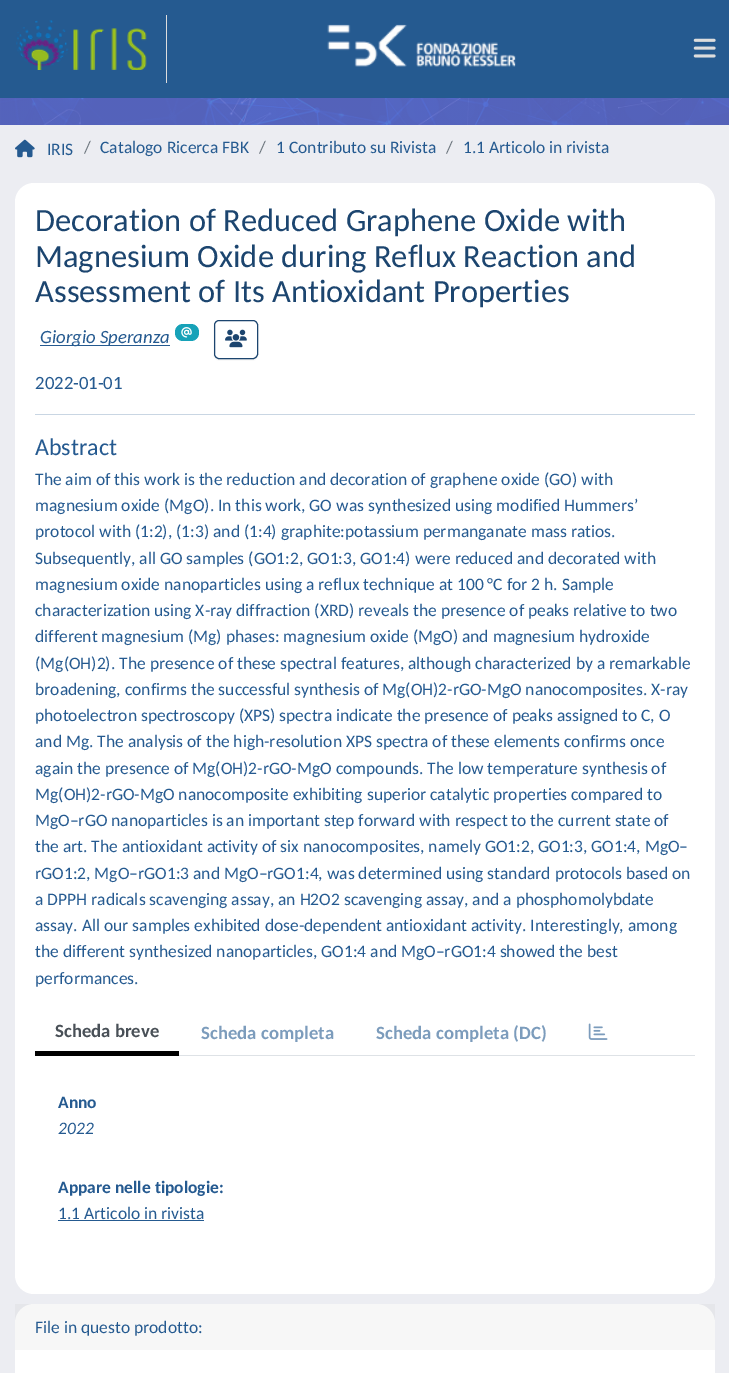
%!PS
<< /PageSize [729 1373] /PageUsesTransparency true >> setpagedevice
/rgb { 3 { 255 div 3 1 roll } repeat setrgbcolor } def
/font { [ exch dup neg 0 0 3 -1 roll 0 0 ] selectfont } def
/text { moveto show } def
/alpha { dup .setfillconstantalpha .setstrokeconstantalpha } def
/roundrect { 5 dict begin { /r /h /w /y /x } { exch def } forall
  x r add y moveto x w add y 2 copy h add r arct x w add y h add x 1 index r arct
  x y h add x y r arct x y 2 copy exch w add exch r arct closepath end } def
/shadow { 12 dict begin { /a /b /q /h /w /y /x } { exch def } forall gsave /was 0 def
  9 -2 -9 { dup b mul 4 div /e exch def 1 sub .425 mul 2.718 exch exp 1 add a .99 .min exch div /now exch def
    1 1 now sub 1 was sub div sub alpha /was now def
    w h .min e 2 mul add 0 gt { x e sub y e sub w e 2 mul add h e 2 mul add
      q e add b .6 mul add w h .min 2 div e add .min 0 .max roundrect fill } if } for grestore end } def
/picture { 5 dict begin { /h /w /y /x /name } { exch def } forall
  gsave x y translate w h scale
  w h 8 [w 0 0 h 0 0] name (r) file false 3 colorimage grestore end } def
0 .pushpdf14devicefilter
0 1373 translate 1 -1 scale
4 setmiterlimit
236 237 242 rgb
0 0 729 1373 rectfill
37 90 144 rgb
0 0 729 98 rectfill
221 221 221 rgb
166 15 1 68 rectfill
(img_01.rgb) 16 20 131 50 picture
(img_02.rgb) 327 24 189 43 picture
(img_03.rgb) 693 38 23 20 picture
(img_04.rgb) 0 98 729 27 picture
(img_05.rgb) 15 139 20 19 picture
255 255 255 rgb
15 183 700 1111 19 roundrect fill
37 90 144 rgb
40 345 130 1 rectfill
23 162 184 rgb
175 324 24 17 8 roundrect fill
(img_06.rgb) 181 327 11 11 picture
gsave
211 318 moveto 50 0 rlineto 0 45 rlineto -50 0 rlineto closepath 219 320 moveto 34 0 rlineto 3 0 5 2 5 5 rcurveto 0 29 rlineto 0 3 -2 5 -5 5 rcurveto -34 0 rlineto -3 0 -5 -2 -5 -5 rcurveto 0 -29 rlineto 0 -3 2 -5 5 -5 rcurveto closepath eoclip newpath
0 0 0 rgb
214 321 44 39 5 0.5 0.07 shadow
grestore
28 69 111 rgb
214.5 320.5 43 38 4.5 roundrect stroke
(img_07.rgb) 225 329 22 19 picture
201 214 227 rgb
35 414 660 1 rectfill
222 226 230 rgb
179 1055 516 1 rectfill
0 0 0 rgb
35 1051 144 5 rectfill
(img_08.rgb) 588 1023 20 17 picture
37 90 144 rgb
58 1220 146 1 rectfill
255 255 255 rgb
15 1304 700 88 19 roundrect fill
0.03 alpha
0 0 0 rgb
15 1304 700 46 rectfill
/Carlito-Regular 17.5 font
1 alpha
37 90 144 rgb
(IRIS) 47 155 text
108 117 125 rgb
(/) 84 153 text
37 90 144 rgb
(Catalogo Ricerca FBK) 100 153 text
108 117 125 rgb
(/) 259 153 text
37 90 144 rgb
(1 Contributo su Rivista) 276 153 text
108 117 125 rgb
(/) 446 153 text
37 90 144 rgb
(1.1 Articolo in rivista) 463 153 text
/Carlito-Regular 32.5 font
28 69 111 rgb
(Decoration of Reduced Graphene Oxide with) 35 231 text
(Magnesium Oxide during Reflux Reaction and) 35 267 text
(Assessment of Its Antioxidant Properties) 35 302 text
/Carlito-Italic 18.75 font
37 90 144 rgb
(Giorgio Speranza) 40 343 text
/Carlito-Regular 18.75 font
(2022-01-01) 35 389 text
/Carlito-Regular 24 font
(Abstract) 35 455 text
/Carlito-Regular 17.5 font
(The aim of this work is the reduction and decoration of graphene oxide \(GO\) with) 35 485 text
(magnesium oxide \(MgO\). In this work, GO was synthesized using modified Hummers’) 35 511 text
(protocol with \(1:2\), \(1:3\) and \(1:4\) graphite:potassium permanganate mass ratios.) 35 537 text
(Subsequently, all GO samples \(GO1:2, GO1:3, GO1:4\) were reduced and decorated with) 35 564 text
(magnesium oxide nanoparticles using a reflux technique at 100 °C for 2 h. Sample) 35 590 text
(characterization using X-ray diffraction \(XRD\) reveals the presence of peaks relative to two) 35 616 text
(different magnesium \(Mg\) phases: magnesium oxide \(MgO\) and magnesium hydroxide) 35 642 text
(\(Mg\(OH\)2\). The presence of these spectral features, although characterized by a remarkable) 35 669 text
(broadening, confirms the successful synthesis of Mg\(OH\)2-rGO-MgO nanocomposites. X-ray) 35 695 text
(photoelectron spectroscopy \(XPS\) spectra indicate the presence of peaks assigned to C, O) 35 721 text
(and Mg. The analysis of the high-resolution XPS spectra of these elements confirms once) 35 747 text
(again the presence of Mg\(OH\)2-rGO-MgO compounds. The low temperature synthesis of) 35 774 text
(Mg\(OH\)2-rGO-MgO nanocomposite exhibiting superior catalytic properties compared to) 35 800 text
(MgO–rGO nanoparticles is an important step forward with respect to the current state of) 35 826 text
(the art. The antioxidant activity of six nanocomposites, namely GO1:2, GO1:3, GO1:4, MgO–) 35 852 text
(rGO1:2, MgO–rGO1:3 and MgO–rGO1:4, was determined using standard protocols based on) 35 879 text
(a DPPH radicals scavenging assay, an H2O2 scavenging assay, and a phosphomolybdate) 35 905 text
(assay. All our samples exhibited dose-dependent antioxidant activity. Interestingly, among) 35 931 text
(the different synthesized nanoparticles, GO1:4 and MgO–rGO1:4 showed the best) 35 957 text
(performances.) 35 984 text
/Carlito-Bold 18.75 font
73 80 87 rgb
(Scheda breve) 55 1037 text
124 156 188 rgb
(Scheda completa) 201 1039 text
(Scheda completa \(DC\)) 376 1039 text
/Carlito-Bold 17.5 font
37 90 144 rgb
(Anno) 58 1108 text
/Carlito-Italic 17.5 font
(2022) 58 1134 text
/Carlito-Bold 17.5 font
(Appare nelle tipologie:) 58 1193 text
/Carlito-Regular 17.5 font
(1.1 Articolo in rivista) 58 1219 text
(File in questo prodotto:) 35 1333 text
.poppdf14devicefilter showpage
